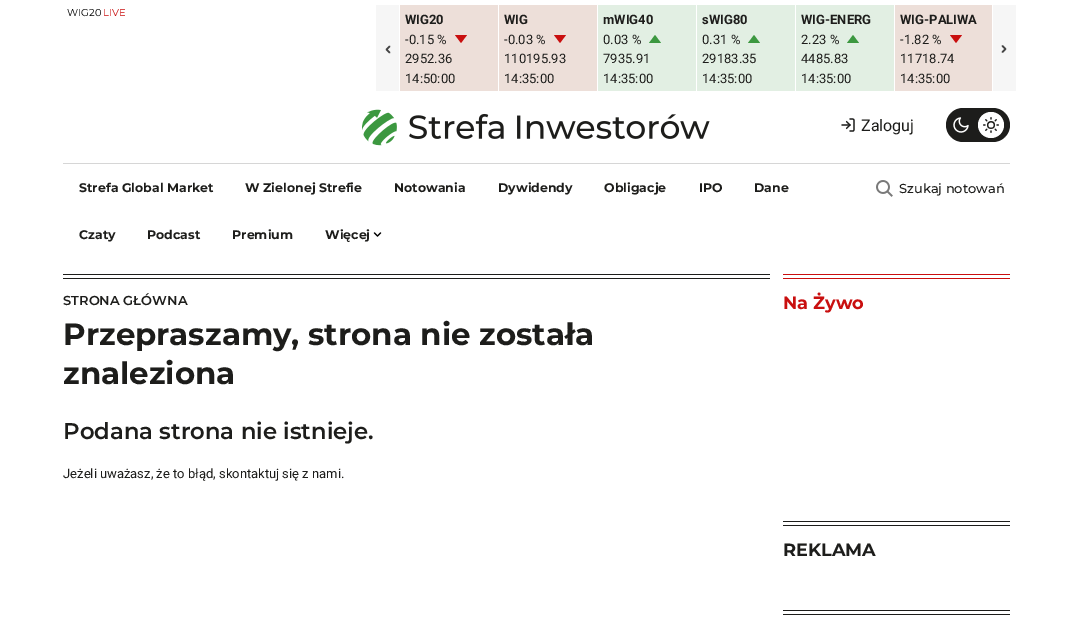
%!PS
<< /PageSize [1072 621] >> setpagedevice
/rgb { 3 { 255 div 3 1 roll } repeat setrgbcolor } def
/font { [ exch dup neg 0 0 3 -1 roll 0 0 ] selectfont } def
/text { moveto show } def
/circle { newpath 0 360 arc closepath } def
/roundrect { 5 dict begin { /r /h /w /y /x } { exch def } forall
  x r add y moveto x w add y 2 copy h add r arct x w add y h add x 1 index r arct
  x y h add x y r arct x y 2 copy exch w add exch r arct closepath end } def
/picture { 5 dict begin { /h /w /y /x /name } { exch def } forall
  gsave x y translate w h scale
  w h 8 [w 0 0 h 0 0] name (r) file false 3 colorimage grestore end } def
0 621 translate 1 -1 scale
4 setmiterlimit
255 255 255 rgb
0 0 1072 621 rectfill
246 246 246 rgb
376 5 23 86 rectfill
69 69 69 rgb
1.5 setlinewidth
1 setlinecap
1 setlinejoin
389.5 46.5 moveto -3 3 rlineto 3 3 rlineto stroke
237 223 217 rgb
400 5 98 86 rectfill
201 15 15 rgb
455 35 moveto 12 0 rlineto -6 8 rlineto closepath fill
237 223 217 rgb
499 5 98 86 rectfill
201 15 15 rgb
554 35 moveto 12 0 rlineto -6 8 rlineto closepath fill
226 239 227 rgb
598 5 98 86 rectfill
60 152 64 rgb
661 43 moveto -12 0 rlineto 6 -8 rlineto closepath fill
226 239 227 rgb
697 5 98 86 rectfill
60 152 64 rgb
760 43 moveto -12 0 rlineto 6 -8 rlineto closepath fill
226 239 227 rgb
796 5 98 86 rectfill
60 152 64 rgb
859 43 moveto -12 0 rlineto 6 -8 rlineto closepath fill
237 223 217 rgb
895 5 97 86 rectfill
201 15 15 rgb
950 35 moveto 12 0 rlineto -6 8 rlineto closepath fill
246 246 246 rgb
993 5 23 86 rectfill
69 69 69 rgb
1002.5 52 moveto 3 -3 rlineto -3 -3 rlineto stroke
(img_01.rgb) 362 109 348 37 picture
(img_02.rgb) 841 118 14 14 picture
29 29 27 rgb
946 108 64 34 17 roundrect fill
(img_03.rgb) 953 117 16 16 picture
255 255 255 rgb
991 125 13 circle fill
(img_04.rgb) 983 117 16 16 picture
214 214 214 rgb
63 163 947 1 rectfill
(img_05.rgb) 373 232 9 5 picture
(img_06.rgb) 876 180 17 17 picture
29 29 27 rgb
63 274 707 1 rectfill
63 278 707 1 rectfill
201 15 15 rgb
783 274 227 1 rectfill
783 278 227 1 rectfill
29 29 27 rgb
783 521 227 1 rectfill
783 525 227 1 rectfill
783 610 227 1 rectfill
783 614 227 1 rectfill
/Montserrat-Regular 10 font
0 0 0 rgb
(WIG20) 67 16 text
201 15 15 rgb
(LIVE) 103 16 text
/Roboto-Bold 13 font
29 29 27 rgb
(WIG20) 405 24 text
/Roboto-Regular 13 font
(-0.15 %) 405 44 text
(2952.36) 405 63 text
(14:50:00) 405 83 text
/Roboto-Bold 13 font
(WIG) 504 24 text
/Roboto-Regular 13 font
(-0.03 %) 504 44 text
(110195.93) 504 63 text
(14:35:00) 504 83 text
/Roboto-Bold 13 font
(mWIG40) 603 24 text
/Roboto-Regular 13 font
(0.03 %) 603 44 text
(7935.91) 603 63 text
(14:35:00) 603 83 text
/Roboto-Bold 13 font
(sWIG80) 702 24 text
/Roboto-Regular 13 font
(0.31 %) 702 44 text
(29183.35) 702 63 text
(14:35:00) 702 83 text
/Roboto-Bold 13 font
(WIG-ENERG) 801 24 text
/Roboto-Regular 13 font
(2.23 %) 801 44 text
(4485.83) 801 63 text
(14:35:00) 801 83 text
/Roboto-Bold 13 font
(WIG-PALIWA) 900 24 text
/Roboto-Regular 13 font
(-1.82 %) 900 44 text
(11718.74) 900 63 text
(14:35:00) 900 83 text
/Roboto-Regular 16 font
(Zaloguj) 861 131 text
/Montserrat-Bold 12.5 font
(Strefa Global Market) 79 192 text
(W Zielonej Strefie) 245 192 text
(Notowania) 394 192 text
(Dywidendy) 498 192 text
(Obligacje) 604 192 text
(IPO) 699 192 text
(Dane) 754 192 text
(Czaty) 79 239 text
(Podcast) 147 239 text
(Premium) 232 239 text
(Więcej) 325 239 text
/Montserrat-Medium 13 font
(Szukaj notowań) 899 193 text
/Montserrat-SemiBold 13 font
(STRONA GŁÓWNA) 63 305 text
/Montserrat-Bold 30.8 font
(Przepraszamy, strona nie została) 63 345 text
(znaleziona) 63 384 text
/Montserrat-SemiBold 22.75 font
(Podana strona nie istnieje.) 63 439 text
/Roboto-Regular 13 font
(Jeżeli uważasz, że to błąd, skontaktuj się z nami.) 63 478 text
/Montserrat-Bold 17.75 font
201 15 15 rgb
(Na Żywo) 783 309 text
29 29 27 rgb
(REKLAMA) 783 556 text
showpage
